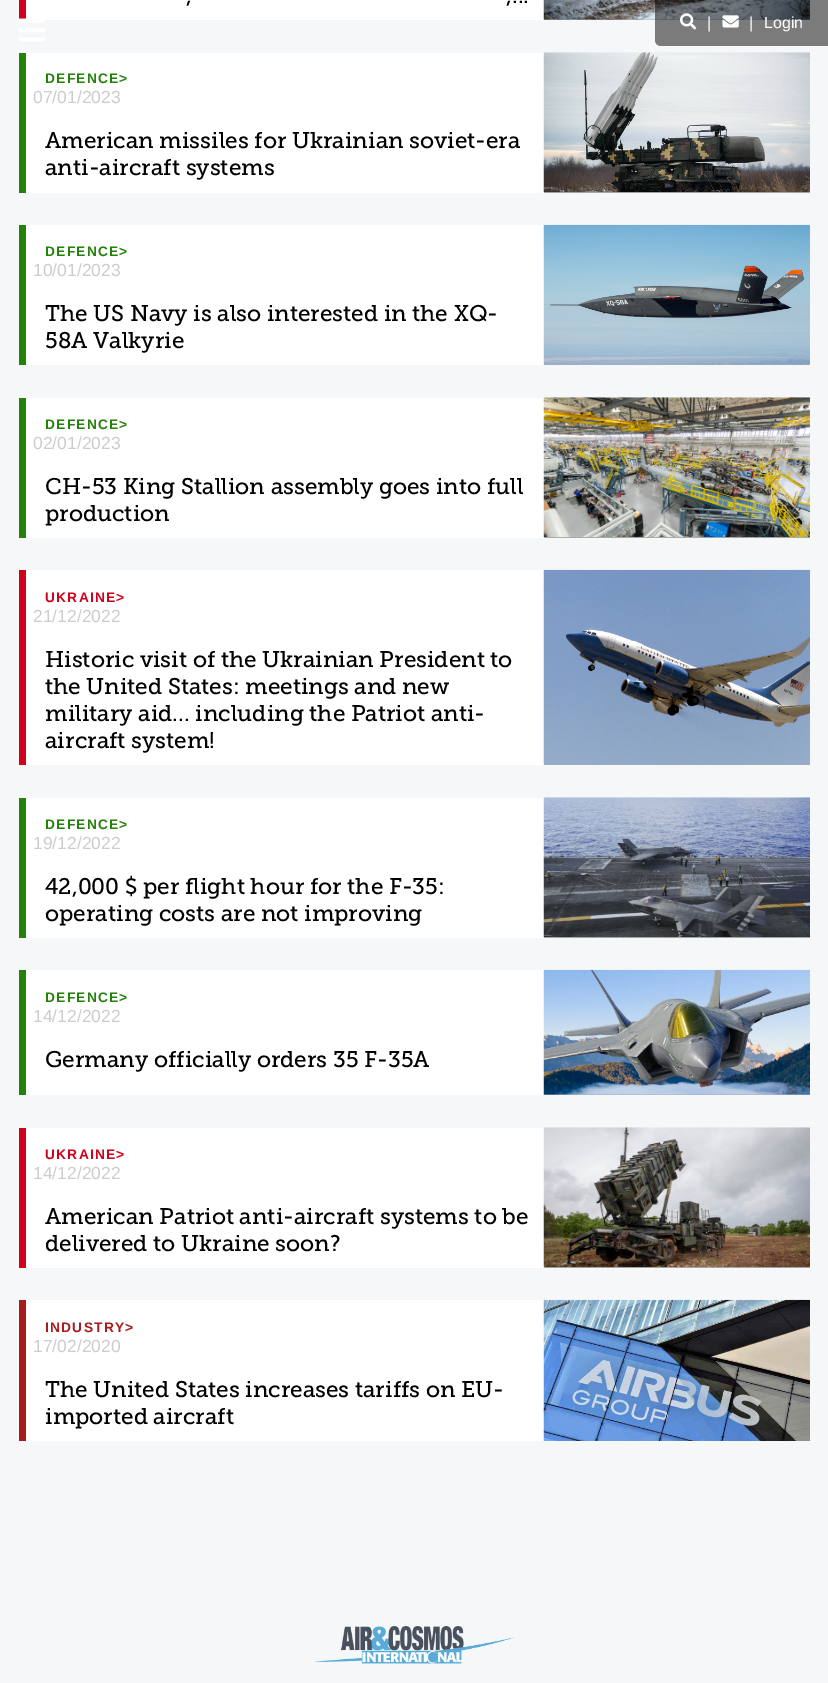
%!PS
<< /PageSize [828 1683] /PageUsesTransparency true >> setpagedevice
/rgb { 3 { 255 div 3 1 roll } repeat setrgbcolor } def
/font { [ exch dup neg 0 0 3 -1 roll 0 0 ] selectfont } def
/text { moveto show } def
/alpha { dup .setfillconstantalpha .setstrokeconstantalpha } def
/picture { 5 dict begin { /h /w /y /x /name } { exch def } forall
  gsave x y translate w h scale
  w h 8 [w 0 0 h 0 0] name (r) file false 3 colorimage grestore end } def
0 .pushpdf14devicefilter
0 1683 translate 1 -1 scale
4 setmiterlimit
246 247 249 rgb
0 0 828 1683 rectfill
255 255 255 rgb
26 0 518 20 rectfill
208 2 27 rgb
19 0 7 20 rectfill
(img_01.rgb) 19 18 26 24 picture
170 170 170 rgb
544 19 266 1 rectfill
(img_02.rgb) 543 0 267 20 picture
255 255 255 rgb
26 53 518 140 rectfill
36 130 11 rgb
19 53 7 140 rectfill
170 170 170 rgb
544 192 266 1 rectfill
(img_03.rgb) 543 52 267 141 picture
255 255 255 rgb
26 225 518 140 rectfill
36 130 11 rgb
19 225 7 140 rectfill
170 170 170 rgb
544 364 266 1 rectfill
(img_04.rgb) 543 224 267 141 picture
255 255 255 rgb
26 398 518 140 rectfill
36 130 11 rgb
19 398 7 140 rectfill
170 170 170 rgb
544 537 266 1 rectfill
(img_05.rgb) 543 397 267 141 picture
255 255 255 rgb
26 570 518 195 rectfill
208 2 27 rgb
19 570 7 195 rectfill
170 170 170 rgb
544 764 266 1 rectfill
(img_06.rgb) 543 569 267 196 picture
255 255 255 rgb
26 798 518 140 rectfill
36 130 11 rgb
19 798 7 140 rectfill
170 170 170 rgb
544 937 266 1 rectfill
(img_07.rgb) 543 797 267 141 picture
255 255 255 rgb
26 970 518 125 rectfill
36 130 11 rgb
19 970 7 125 rectfill
170 170 170 rgb
544 1094 266 1 rectfill
(img_08.rgb) 543 969 267 126 picture
255 255 255 rgb
26 1128 518 140 rectfill
208 2 27 rgb
19 1128 7 140 rectfill
170 170 170 rgb
544 1267 266 1 rectfill
(img_09.rgb) 543 1127 267 141 picture
255 255 255 rgb
26 1300 518 141 rectfill
170 27 27 rgb
19 1300 7 141 rectfill
(img_10.rgb) 543 1299 267 142 picture
(img_11.rgb) 314 1626 201 38 picture
0.5 alpha
0 0 0 rgb
655 0 moveto 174 0 rlineto 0 46 rlineto -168 0 rlineto -3.5 0 -6 -2.5 -6 -6 rcurveto closepath fill
1 alpha
(img_12.rgb) 680 13 17 17 picture
(img_13.rgb) 722 15 17 13 picture
/MuseoSlab-Regular 22.5 font
(,) 186 3 text
(,...) 506 3 text
/LiberationSans-Bold 13.75 font
36 130 11 rgb
45 83 moveto 1.25 0 (DEFENCE>) ashow
/LiberationSans-Regular 17.5 font
204 204 204 rgb
(07/01/2023) 33 103 text
/MuseoSlab-Regular 22.5 font
0 0 0 rgb
(American missiles for Ukrainian soviet-era) 45 148 text
(anti-aircraft systems) 45 175 text
/LiberationSans-Bold 13.75 font
36 130 11 rgb
45 256 moveto 1.25 0 (DEFENCE>) ashow
/LiberationSans-Regular 17.5 font
204 204 204 rgb
(10/01/2023) 33 276 text
/MuseoSlab-Regular 22.5 font
0 0 0 rgb
(The US Navy is also interested in the XQ-) 45 321 text
(58A Valkyrie) 45 348 text
/LiberationSans-Bold 13.75 font
36 130 11 rgb
45 429 moveto 1.25 0 (DEFENCE>) ashow
/LiberationSans-Regular 17.5 font
204 204 204 rgb
(02/01/2023) 33 449 text
/MuseoSlab-Regular 22.5 font
0 0 0 rgb
(CH-53 King Stallion assembly goes into full) 45 494 text
(production) 45 521 text
/LiberationSans-Bold 13.75 font
208 2 27 rgb
45 602 moveto 1.25 0 (UKRAINE>) ashow
/LiberationSans-Regular 17.5 font
204 204 204 rgb
(21/12/2022) 33 622 text
/MuseoSlab-Regular 22.5 font
0 0 0 rgb
(Historic visit of the Ukrainian President to) 45 667 text
(the United States: meetings and new) 45 694 text
(military aid... including the Patriot anti-) 45 721 text
(aircraft system!) 45 748 text
/LiberationSans-Bold 13.75 font
36 130 11 rgb
45 829 moveto 1.25 0 (DEFENCE>) ashow
/LiberationSans-Regular 17.5 font
204 204 204 rgb
(19/12/2022) 33 849 text
/MuseoSlab-Regular 22.5 font
0 0 0 rgb
(42,000 $ per flight hour for the F-35:) 45 894 text
(operating costs are not improving) 45 921 text
/LiberationSans-Bold 13.75 font
36 130 11 rgb
45 1002 moveto 1.25 0 (DEFENCE>) ashow
/LiberationSans-Regular 17.5 font
204 204 204 rgb
(14/12/2022) 33 1022 text
/MuseoSlab-Regular 22.5 font
0 0 0 rgb
(Germany officially orders 35 F-35A) 45 1067 text
/LiberationSans-Bold 13.75 font
208 2 27 rgb
45 1159 moveto 1.25 0 (UKRAINE>) ashow
/LiberationSans-Regular 17.5 font
204 204 204 rgb
(14/12/2022) 33 1179 text
/MuseoSlab-Regular 22.5 font
0 0 0 rgb
(American Patriot anti-aircraft systems to be) 45 1224 text
(delivered to Ukraine soon?) 45 1251 text
/LiberationSans-Bold 13.75 font
170 27 27 rgb
45 1332 moveto 1.25 0 (INDUSTRY>) ashow
/LiberationSans-Regular 17.5 font
204 204 204 rgb
(17/02/2020) 33 1352 text
/MuseoSlab-Regular 22.5 font
0 0 0 rgb
(The United States increases tariffs on EU-) 45 1397 text
(imported aircraft) 45 1424 text
/LiberationSans-Regular 16 font
255 255 255 rgb
(|) 707 28 text
(|) 749 28 text
(Login) 764 28 text
.poppdf14devicefilter showpage
